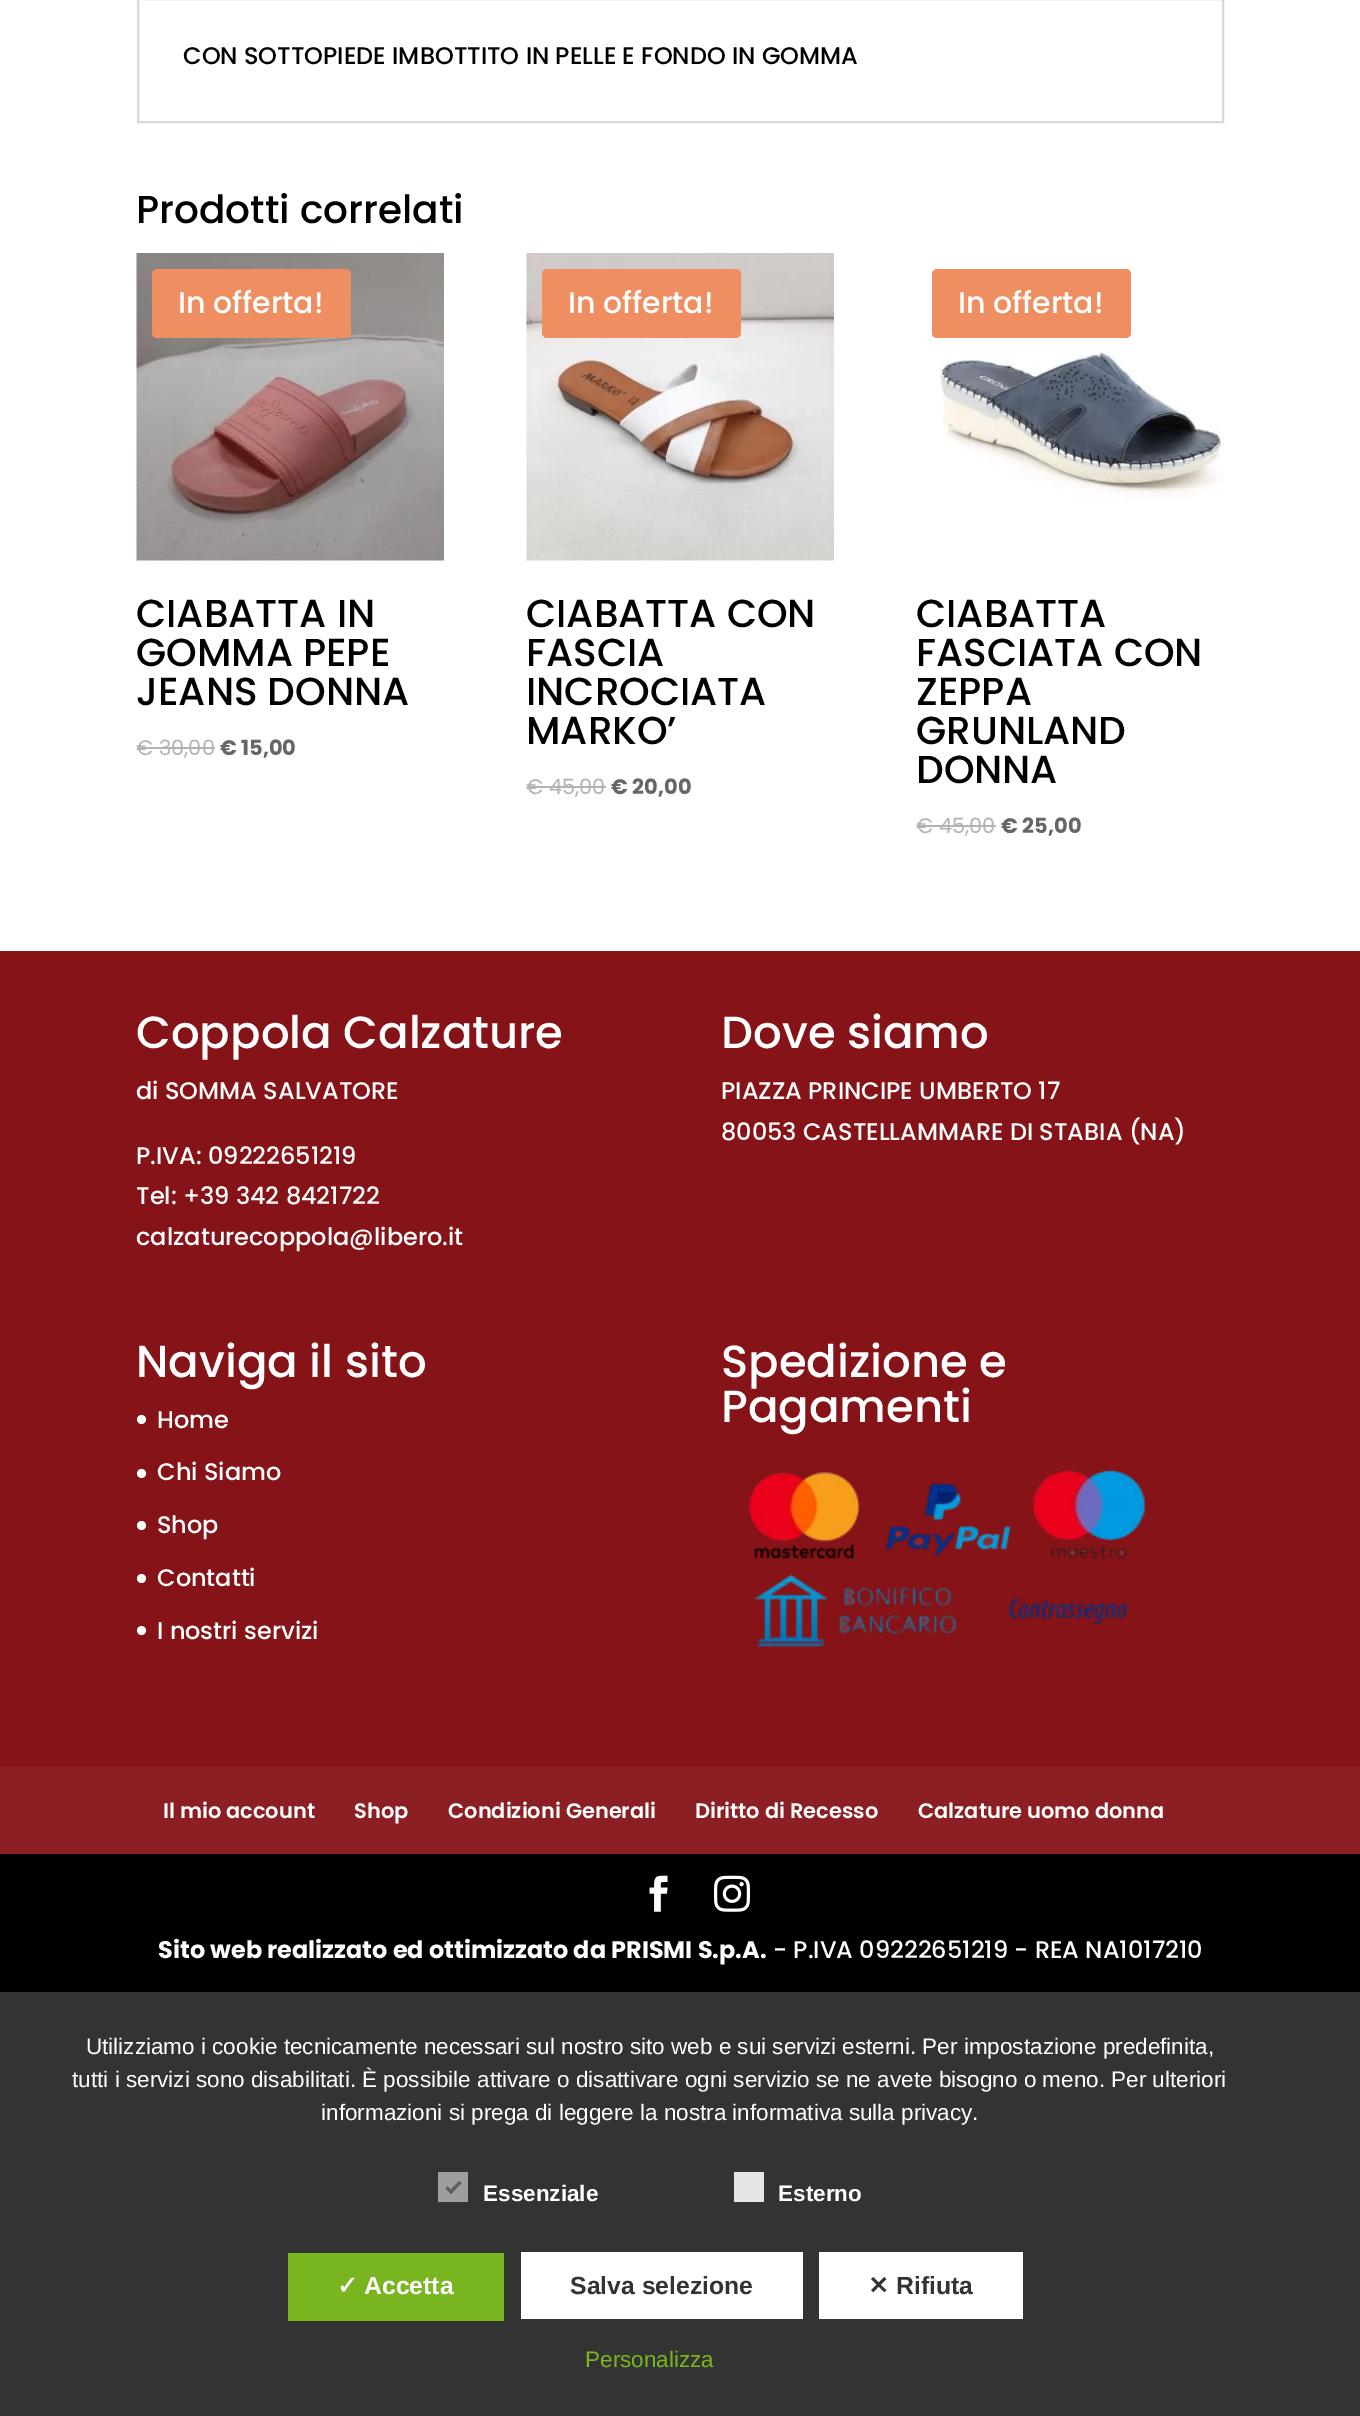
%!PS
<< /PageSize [1360 2416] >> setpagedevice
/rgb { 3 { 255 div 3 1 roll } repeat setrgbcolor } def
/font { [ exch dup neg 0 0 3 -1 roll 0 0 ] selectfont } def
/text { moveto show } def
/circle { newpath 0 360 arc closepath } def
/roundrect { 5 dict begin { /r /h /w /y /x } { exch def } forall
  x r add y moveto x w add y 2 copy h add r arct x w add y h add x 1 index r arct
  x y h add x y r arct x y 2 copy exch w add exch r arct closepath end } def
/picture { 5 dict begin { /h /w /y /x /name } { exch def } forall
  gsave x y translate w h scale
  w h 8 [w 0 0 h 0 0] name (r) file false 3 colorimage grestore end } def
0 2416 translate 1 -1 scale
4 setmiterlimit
134 19 23 rgb
0 0 1360 2416 rectfill
255 255 255 rgb
0 0 1360 951 rectfill
217 217 217 rgb
2 setlinewidth
138 -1 1085 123 rectstroke
(img_01.rgb) 136 253 308 308 picture
239 143 97 rgb
152 269 199 69 5 roundrect fill
179 179 179 rgb
137 747 78 2 rectfill
(img_02.rgb) 526 253 308 308 picture
239 143 97 rgb
542 269 199 69 5 roundrect fill
179 179 179 rgb
527 786 79 2 rectfill
239 143 97 rgb
932 269 199 69 5 roundrect fill
(img_03.rgb) 939 351 285 148 picture
179 179 179 rgb
917 825 79 2 rectfill
255 255 255 rgb
141.5 1419.5 4.5 circle fill
141.5 1473.5 4.5 circle fill
141.5 1525.5 4.5 circle fill
141.5 1578.5 4.5 circle fill
141.5 1630.5 4.5 circle fill
(img_04.rgb) 748 1470 398 177 picture
140 31 35 rgb
0 1767 1360 87 rectfill
0 0 0 rgb
0 1854 1360 138 rectfill
(img_05.rgb) 649 1875 19 37 picture
(img_06.rgb) 714 1875 36 37 picture
51 51 51 rgb
0 1992 1360 424 rectfill
158 158 158 rgb
438 2172 30 30 rectfill
94 94 94 rgb
459.5 2181 moveto 2 2 rlineto -10.5 11 rlineto -2.5 -2.5 rlineto closepath fill
447.5 2186.5 moveto 5.5 5 rlineto -2 2.5 rlineto -5.5 -5.5 rlineto closepath fill
230 230 230 rgb
734 2172 30 30 rectfill
121 181 31 rgb
288 2253 216 68 rectfill
255 255 255 rgb
521 2252 282 67 rectfill
819 2252 204 67 rectfill
/Poppins-Medium 24 font
0 0 0 rgb
(CON SOTTOPIEDE IMBOTTITO IN PELLE E FONDO IN GOMMA) 183 64 text
/Poppins-Medium 39 font
(Prodotti correlati) 136 223 text
/Poppins-Medium 30 font
255 255 255 rgb
(In offerta!) 178 313 text
/Poppins-Medium 39 font
0 0 0 rgb
(CIABATTA IN) 136 627 text
(GOMMA PEPE) 136 666 text
(JEANS DONNA) 136 705 text
/Poppins-Regular 21 font
179 179 179 rgb
(€ 30,00) 136 755 text
/Poppins-Bold 21 font
102 102 102 rgb
(€ 15,00) 220 755 text
/Poppins-Medium 30 font
255 255 255 rgb
(In offerta!) 568 313 text
/Poppins-Medium 39 font
0 0 0 rgb
(CIABATTA CON) 526 627 text
(FASCIA) 526 666 text
(INCROCIATA) 526 705 text
(MARKO’) 526 744 text
/Poppins-Regular 21 font
179 179 179 rgb
(€ 45,00) 526 794 text
/Poppins-Bold 21 font
102 102 102 rgb
(€ 20,00) 611 794 text
/Poppins-Medium 30 font
255 255 255 rgb
(In offerta!) 958 313 text
/Poppins-Medium 39 font
0 0 0 rgb
(CIABATTA) 916 627 text
(FASCIATA CON) 916 666 text
(ZEPPA) 916 705 text
(GRUNLAND) 916 744 text
(DONNA) 916 783 text
/Poppins-Regular 21 font
179 179 179 rgb
(€ 45,00) 916 833 text
/Poppins-Bold 21 font
102 102 102 rgb
(€ 25,00) 1001 833 text
/Poppins-Medium 45 font
255 255 255 rgb
(Coppola Calzature) 136 1048 text
/Poppins-Medium 24 font
(di SOMMA SALVATORE) 136 1099 text
(P.IVA: 09222651219) 136 1164 text
(Tel: +39 342 8421722) 136 1204 text
(calzaturecoppola@libero.it) 136 1245 text
/Poppins-Medium 45 font
(Dove siamo) 721 1048 text
/Poppins-Medium 24 font
(PIAZZA PRINCIPE UMBERTO 17) 721 1099 text
(80053 CASTELLAMMARE DI STABIA \(NA\)) 721 1140 text
/Poppins-Medium 45 font
(Naviga il sito) 136 1377 text
/Poppins-Medium 24 font
(Home) 157 1428 text
(Chi Siamo) 157 1480 text
(Shop) 157 1533 text
(Contatti) 157 1586 text
(I nostri servizi) 157 1639 text
/Poppins-Medium 45 font
(Spedizione e) 721 1377 text
(Pagamenti) 721 1422 text
/Poppins-SemiBold 21 font
(Il mio account) 163 1818 text
(Shop) 354 1818 text
(Condizioni Generali) 448 1818 text
(Diritto di Recesso) 695 1818 text
(Calzature uomo donna) 918 1818 text
/Poppins-Bold 24 font
(Sito web realizzato ed ottimizzato da PRISMI S.p.A.) 158 1958 text
/Poppins-Medium 24 font
(- P.IVA 09222651219 - REA NA1017210) 773 1958 text
/LiberationSans-Regular 22.5 font
(Utilizziamo i cookie tecnicamente necessari sul nostro sito web e sui servizi esterni. Per impostazione predefinita,) 86 2054 text
(tutti i servizi sono disabilitati. È possibile attivare o disattivare ogni servizio se ne avete bisogno o meno. Per ulteriori) 72 2087 text
(informazioni si prega di leggere la nostra informativa sulla privacy.) 321 2120 text
/LiberationSans-Bold 22.5 font
(Essenziale) 483 2201 text
(Esterno) 778 2201 text
/DejaVuSans-Bold 24.75 font
(✓) 337 2294 text
/LiberationSans-Bold 24.75 font
(Accetta) 364 2294 text
51 51 51 rgb
(Salva selezione) 570 2294 text
/DejaVuSans-Bold 24.75 font
(✕) 868 2294 text
/LiberationSans-Bold 24.75 font
(Rifiuta) 896 2294 text
/LiberationSans-Regular 22.5 font
121 181 31 rgb
(Personalizza) 585 2367 text
showpage
